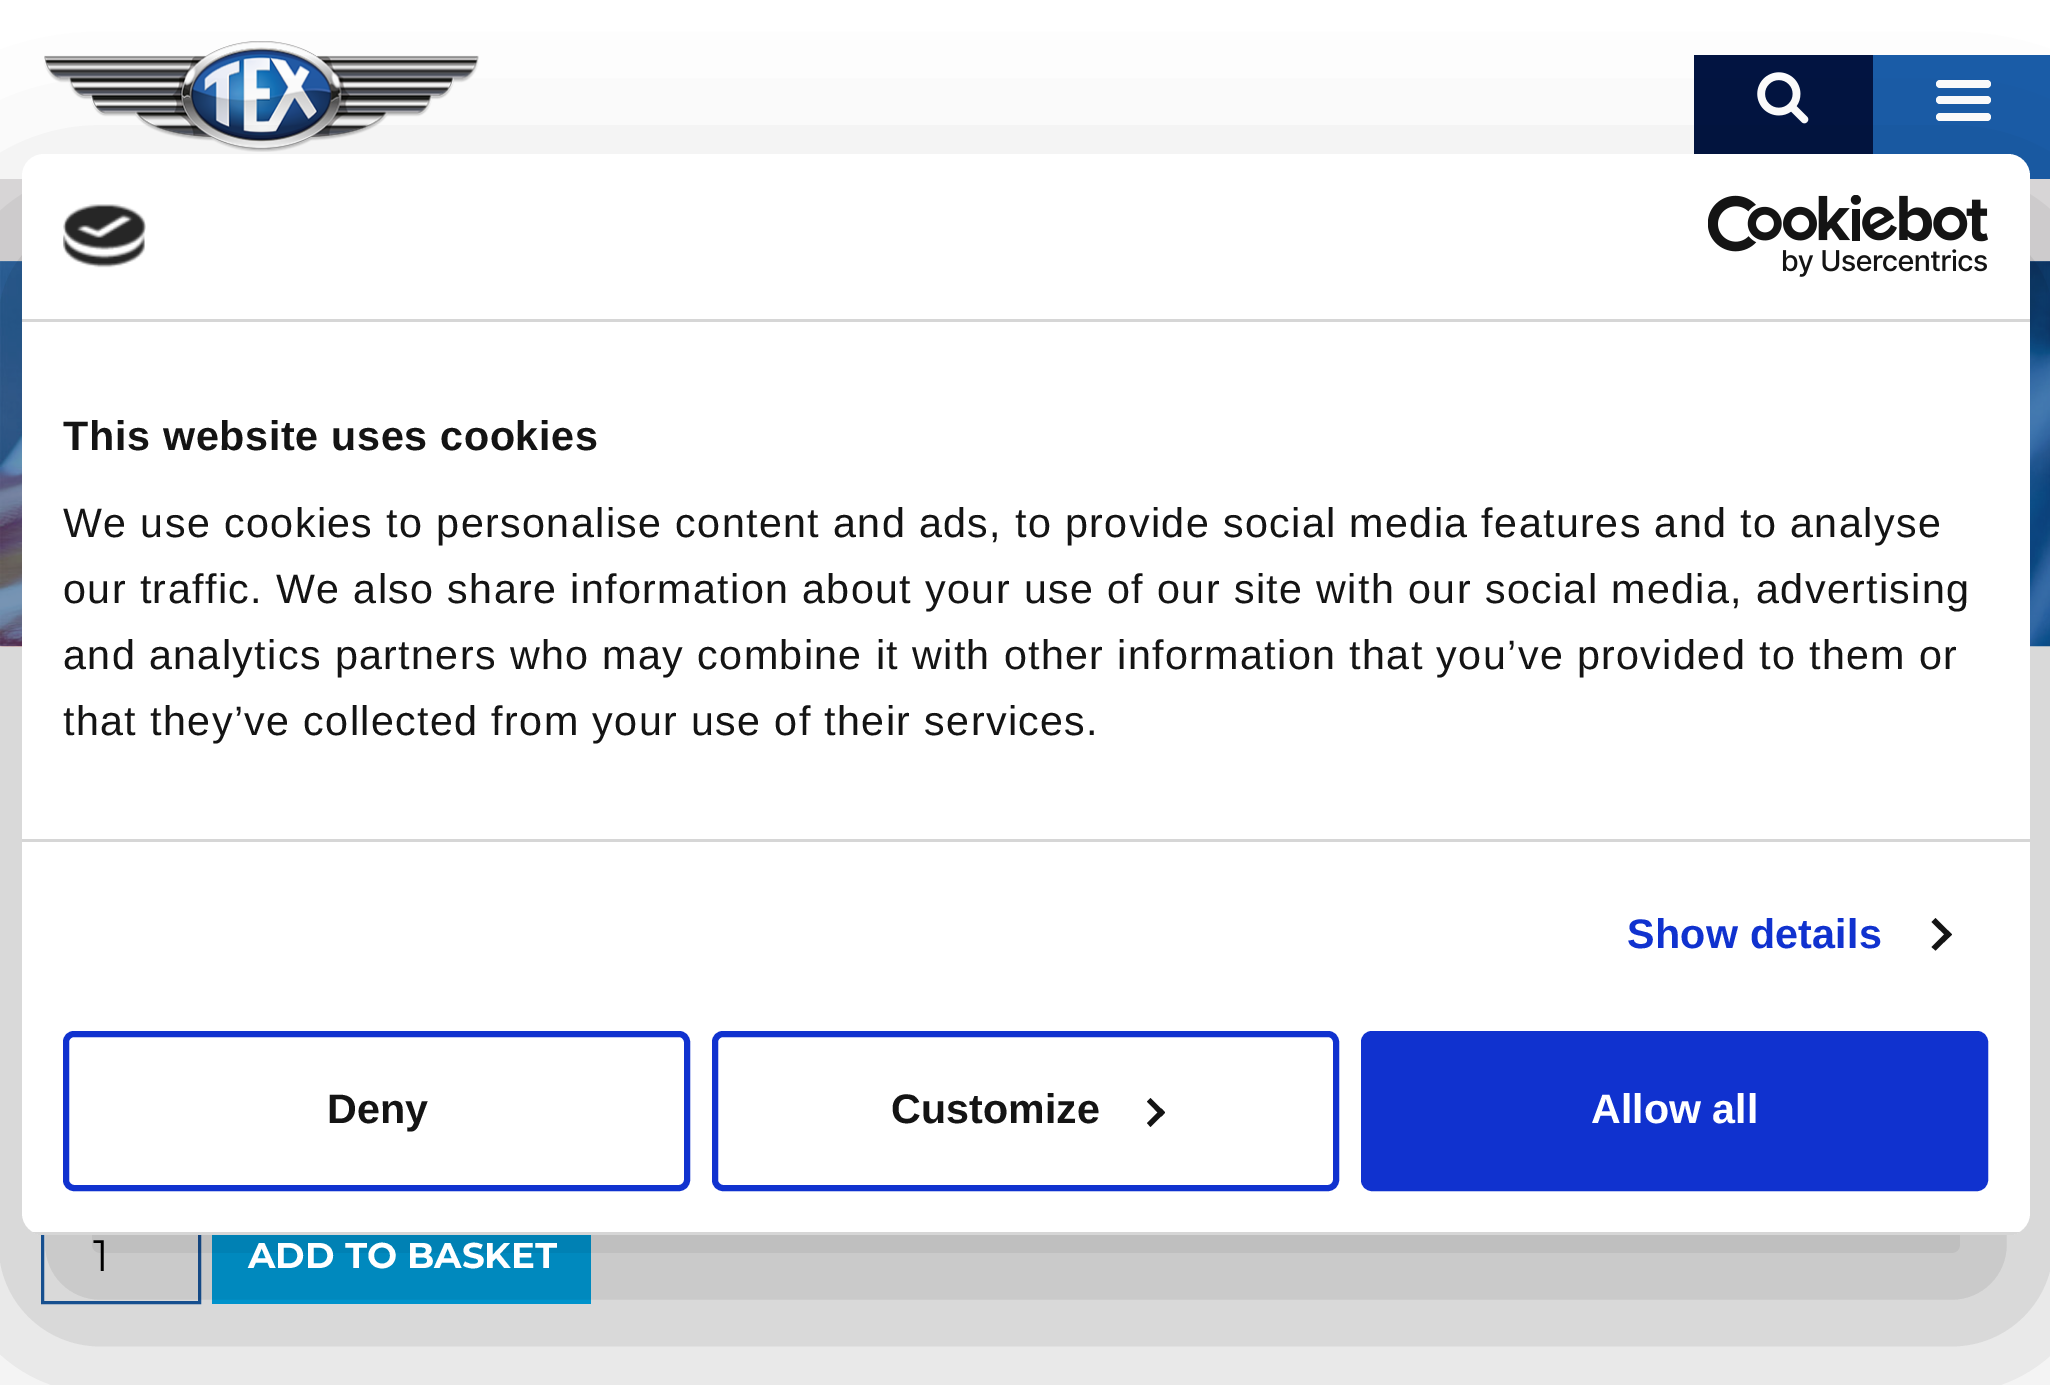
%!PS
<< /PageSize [2050 1385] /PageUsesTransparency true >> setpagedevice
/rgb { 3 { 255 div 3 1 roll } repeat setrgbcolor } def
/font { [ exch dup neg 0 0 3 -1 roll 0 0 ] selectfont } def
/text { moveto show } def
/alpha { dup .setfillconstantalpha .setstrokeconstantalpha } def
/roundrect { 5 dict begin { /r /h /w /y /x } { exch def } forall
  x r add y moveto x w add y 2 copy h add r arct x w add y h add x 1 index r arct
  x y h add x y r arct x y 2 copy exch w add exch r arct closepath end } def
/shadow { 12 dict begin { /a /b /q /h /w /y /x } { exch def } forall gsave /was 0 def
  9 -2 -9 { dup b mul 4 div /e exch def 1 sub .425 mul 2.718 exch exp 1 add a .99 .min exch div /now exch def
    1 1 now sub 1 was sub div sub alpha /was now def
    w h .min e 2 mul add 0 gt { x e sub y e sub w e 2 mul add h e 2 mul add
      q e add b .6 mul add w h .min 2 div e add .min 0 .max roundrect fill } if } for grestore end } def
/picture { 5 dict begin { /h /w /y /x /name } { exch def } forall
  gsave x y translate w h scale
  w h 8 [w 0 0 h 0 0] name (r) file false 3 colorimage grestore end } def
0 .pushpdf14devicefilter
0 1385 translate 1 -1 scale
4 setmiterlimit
255 255 255 rgb
0 0 2050 1385 rectfill
(img_01.rgb) 44 41 435 111 picture
2 20 66 rgb
1694 55 179 99 rectfill
(img_02.rgb) 1757 72 52 52 picture
26 93 168 rgb
1873 55 177 124 rectfill
255 255 255 rgb
1936 96 55 8 4 roundrect fill
1936 80 55 8 4 roundrect fill
1936 113 55 8 4 roundrect fill
225 223 224 rgb
0 179 2050 82 rectfill
(img_05.rgb) 0 261 2050 386 picture
26 93 168 rgb
3 setlinewidth
42.5 1208.5 157 94 rectstroke
0 173 241 rgb
212 1235 379 69 rectfill
0 0 0 rgb
22 242 2008 1081 22 93.5 0.3 shadow
255 255 255 rgb
22 154 2008 1081 22 roundrect fill
214 214 214 rgb
22 319 2008 3 rectfill
(img_03.rgb) 63 204 83 64 picture
(img_04.rgb) 1708 195 280 82 picture
22 839 2008 3 rectfill
20 20 20 rgb
1935.5 918 moveto 16.5 16.5 rlineto -4 3.5 rlineto -16.5 -16 rlineto closepath fill
1948 930.5 moveto 4 4 rlineto -16.5 16 rlineto -4 -3.5 rlineto closepath fill
gsave
22 154 2008 1081 22 roundrect clip newpath
214 214 214 rgb
33 1232 1986 3 rectfill
grestore
16 50 207 rgb
6 setlinewidth
66 1034 621 154 8 roundrect stroke
715 1034 621 154 8 roundrect stroke
20 20 20 rgb
1150.5 1098 moveto 14.5 14.5 rlineto -3.5 4 rlineto -14.5 -15 rlineto closepath fill
1161.5 1108.5 moveto 3.5 4 rlineto -14.5 14.5 rlineto -3.5 -4 rlineto closepath fill
16 50 207 rgb
1364 1034 621 154 8 roundrect gsave fill grestore
stroke
/LiberationSans-Bold 41.25 font
20 20 20 rgb
63 450 moveto 0.7 0 (This website uses cookies) ashow
/LiberationSans-Regular 41.25 font
63 537 moveto 1.38 0 (We use cookies to personalise content and ads, to provide social media features and to analyse) ashow
63 603 moveto 1.38 0 (our traffic. We also share information about your use of our site with our social media, advertising) ashow
63 669 moveto 1.38 0 (and analytics partners who may combine it with other information that you’ve provided to them or) ashow
63 735 moveto 1.38 0 (that they’ve collected from your use of their services.) ashow
/LiberationSans-Bold 41.25 font
16 50 207 rgb
1627 948 moveto 0.25 0 (Show details) ashow
20 20 20 rgb
(Deny) 327 1123 text
(Customize) 891 1123 text
255 255 255 rgb
(Allow all) 1591 1123 text
/Montserrat-Regular 44 font
0 0 0 rgb
(1) 93 1271 text
/Montserrat-Bold 35.75 font
255 255 255 rgb
(ADD TO BASKET) 248 1268 text
.poppdf14devicefilter showpage
